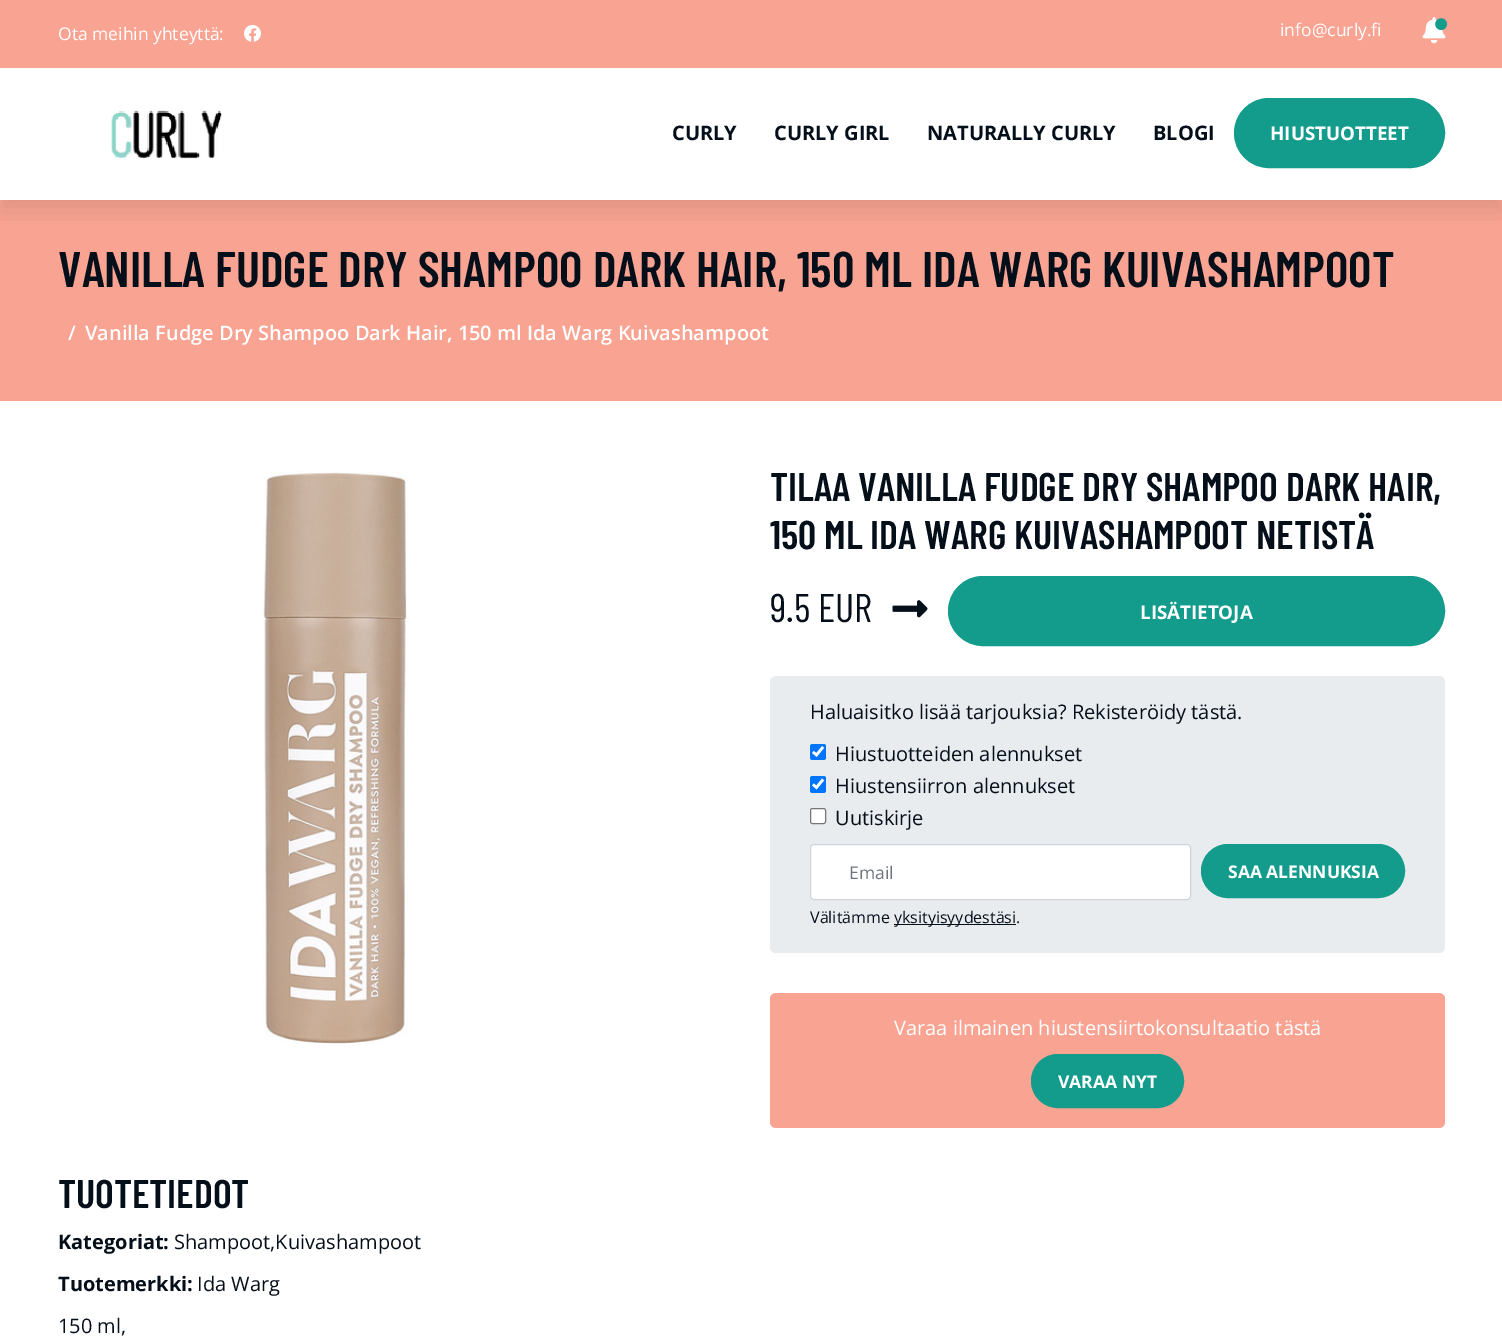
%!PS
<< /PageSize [1502 1342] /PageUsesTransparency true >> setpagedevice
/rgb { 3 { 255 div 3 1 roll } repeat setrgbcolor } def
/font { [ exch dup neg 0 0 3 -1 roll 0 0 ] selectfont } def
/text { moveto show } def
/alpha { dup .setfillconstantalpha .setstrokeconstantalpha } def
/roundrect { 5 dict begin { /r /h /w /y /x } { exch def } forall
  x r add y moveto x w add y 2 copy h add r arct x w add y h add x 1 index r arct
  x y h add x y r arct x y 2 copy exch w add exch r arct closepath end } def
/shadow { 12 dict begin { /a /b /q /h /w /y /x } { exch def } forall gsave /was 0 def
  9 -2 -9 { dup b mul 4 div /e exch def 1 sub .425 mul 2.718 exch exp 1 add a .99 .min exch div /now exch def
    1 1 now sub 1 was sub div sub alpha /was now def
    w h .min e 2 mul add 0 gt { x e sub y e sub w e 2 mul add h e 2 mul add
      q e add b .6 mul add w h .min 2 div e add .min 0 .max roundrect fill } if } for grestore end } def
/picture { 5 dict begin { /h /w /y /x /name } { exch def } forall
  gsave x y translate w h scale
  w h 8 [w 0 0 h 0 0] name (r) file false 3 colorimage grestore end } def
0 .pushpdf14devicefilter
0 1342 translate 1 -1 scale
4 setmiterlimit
255 255 255 rgb
0 0 1502 1342 rectfill
249 163 146 rgb
0 0 1502 68 rectfill
(img_01.rgb) 244 25 17 17 picture
(img_02.rgb) 1422 17 24 27 picture
(img_03.rgb) 1435 18 13 13 picture
0 200 1502 201 rectfill
gsave
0 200 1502 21 rectclip
0 0 0 rgb
0 79 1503 132 0 12.5 0.09 shadow
grestore
(img_04.rgb) 111 110 111 49 picture
19 156 140 rgb
1234.5 98.5 210 69 34.5 roundrect gsave fill grestore
stroke
(img_05.rgb) 263 471 146 574 picture
(img_06.rgb) 892 600 36 18 picture
948.5 576.5 496 69 34.5 roundrect gsave fill grestore
stroke
233 236 239 rgb
770 676 675 277 6 roundrect fill
0 117 255 rgb
810 744 16 16 2.5 roundrect fill
255 255 255 rgb
2.6 setlinewidth
813 752 moveto 3.5 3 rlineto 6.5 -8 rlineto stroke
0 117 255 rgb
810 776 16 17 2.5 roundrect fill
255 255 255 rgb
813 784.5 moveto 3.5 3 rlineto 6.5 -8 rlineto stroke
810.5 808.5 15 15 2 roundrect gsave fill grestore
118 118 118 rgb
1 setlinewidth
stroke
255 255 255 rgb
811 845 379 54 2.5 roundrect fill
206 212 218 rgb
810.5 844.5 380 55 3.5 roundrect stroke
19 156 140 rgb
1201.5 844.5 203 53 26.5 roundrect gsave fill grestore
stroke
5 15 26 rgb
894 924 122 1 rectfill
249 163 146 rgb
770 993 675 135 6 roundrect fill
19 156 140 rgb
1031.5 1054.5 152 53 26.5 roundrect gsave fill grestore
stroke
/OpenSans-Regular 17.5 font
255 255 255 rgb
(Ota meihin yhteyttä:) 58 40 text
(info@curly.fi) 1280 36 text
/OpenSans-Bold 20 font
5 15 26 rgb
(CURLY) 672 140 text
(CURLY GIRL) 774 140 text
(NATURALLY CURLY) 927 140 text
(BLOGI) 1153 140 text
/OpenSans-Bold 18.75 font
255 255 255 rgb
(HIUSTUOTTEET) 1270 140 text
/BarlowCondensed-SemiBold 50 font
5 15 26 rgb
(VANILLA FUDGE DRY SHAMPOO DARK HAIR, 150 ML IDA WARG KUIVASHAMPOOT) 58 287 text
/OpenSans-SemiBold 20 font
255 255 255 rgb
(/) 68 340 text
(Vanilla Fudge Dry Shampoo Dark Hair, 150 ml Ida Warg Kuivashampoot) 85 340 text
/BarlowCondensed-SemiBold 40 font
5 15 26 rgb
(TILAA VANILLA FUDGE DRY SHAMPOO DARK HAIR,) 770 501 text
(150 ML IDA WARG KUIVASHAMPOOT NETISTÄ) 770 549 text
/BarlowCondensed-Regular 40 font
(9.5 EUR) 770 622 text
/OpenSans-Bold 18.75 font
255 255 255 rgb
(LISÄTIETOJA) 1140 619 text
/OpenSans-Regular 20 font
5 15 26 rgb
(Haluaisitko lisää tarjouksia? Rekisteröidy tästä.) 810 719 text
(Hiustuotteiden alennukset) 835 761 text
(Hiustensiirron alennukset) 835 793 text
(Uutiskirje) 835 825 text
/OpenSans-Regular 17.5 font
108 117 125 rgb
(Email) 849 879 text
/OpenSans-Bold 17.5 font
255 255 255 rgb
(SAA ALENNUKSIA) 1228 878 text
/OpenSans-Regular 16 font
5 15 26 rgb
(Välitämme) 810 923 text
(yksityisyydestäsi.) 894 923 text
/OpenSans-Regular 20 font
255 255 255 rgb
(Varaa ilmainen hiustensiirtokonsultaatio tästä) 894 1035 text
/OpenSans-Bold 17.5 font
(VARAA NYT) 1058 1088 text
/BarlowCondensed-SemiBold 40 font
5 15 26 rgb
(TUOTETIEDOT) 58 1208 text
/OpenSans-Bold 20 font
(Kategoriat:) 58 1249 text
/OpenSans-Regular 20 font
(Shampoot,Kuivashampoot) 174 1249 text
/OpenSans-Bold 20 font
(Tuotemerkki:) 58 1291 text
/OpenSans-Regular 20 font
(Ida Warg) 197 1291 text
(150 ml,) 58 1333 text
.poppdf14devicefilter showpage
